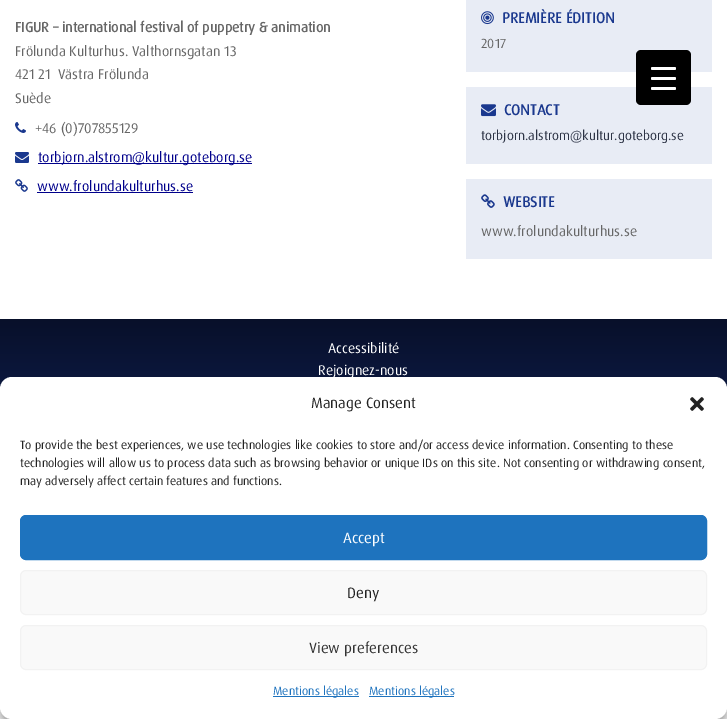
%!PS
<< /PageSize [727 719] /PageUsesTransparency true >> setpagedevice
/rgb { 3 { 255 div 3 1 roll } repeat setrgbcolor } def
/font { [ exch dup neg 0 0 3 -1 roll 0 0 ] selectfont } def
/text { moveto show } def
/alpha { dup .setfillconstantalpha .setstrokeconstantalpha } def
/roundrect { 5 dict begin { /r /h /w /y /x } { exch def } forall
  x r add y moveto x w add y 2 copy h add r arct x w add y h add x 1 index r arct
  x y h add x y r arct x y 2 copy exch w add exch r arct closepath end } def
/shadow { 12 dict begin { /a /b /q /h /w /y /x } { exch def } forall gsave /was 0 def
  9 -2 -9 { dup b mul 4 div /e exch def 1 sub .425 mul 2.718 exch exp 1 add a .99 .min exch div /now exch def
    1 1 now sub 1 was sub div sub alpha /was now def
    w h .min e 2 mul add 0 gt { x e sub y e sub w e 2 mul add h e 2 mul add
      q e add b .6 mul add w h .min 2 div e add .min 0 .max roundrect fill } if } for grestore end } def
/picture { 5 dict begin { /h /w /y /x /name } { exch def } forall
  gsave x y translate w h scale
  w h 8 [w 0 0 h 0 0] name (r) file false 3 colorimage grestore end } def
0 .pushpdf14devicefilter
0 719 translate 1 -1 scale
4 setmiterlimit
255 255 255 rgb
0 0 727 719 rectfill
(img_01.rgb) 15 122 11 11 picture
(img_02.rgb) 15 152 14 11 picture
0 0 139 rgb
38 163 214 1 rectfill
(img_03.rgb) 15 179 13 13 picture
37 192 156 1 rectfill
232 236 245 rgb
466 0 246 72 rectfill
(img_04.rgb) 481 11 13 14 picture
466 87 246 77 rectfill
(img_05.rgb) 481 104 15 13 picture
466 179 246 80 rectfill
(img_06.rgb) 481 194 14 14 picture
gsave 0 319 moveto 727 0 rlineto 0 70 rlineto -727 0 rlineto closepath clip newpath
<< /ShadingType 2 /ColorSpace /DeviceRGB /Coords [364 319 364 654] /Extend [true true] /Function << /FunctionType 2 /Domain [0 1] /C0 [0.031 0.063 0.165] /C1 [0.102 0.22 0.557] /N 1 >> >> shfill grestore
0 0 0 rgb
636 50 55 55 5 roundrect fill
255 255 255 rgb
651 77 25 3 1.5 roundrect fill
651 67 25 3 1.5 roundrect fill
651 87 25 3 1.5 roundrect fill
0 0 0 rgb
0 383 727 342 12 3 0.23 shadow
0 387 727 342 12 10 0.19 shadow
128 128 128 rgb
657 645 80 60 2 2.5 1 shadow
255 255 255 rgb
0 377 727 342 12 roundrect fill
(img_07.rgb) 690 397 14 14 picture
30 115 190 rgb
20.5 515.5 686 44 5.5 roundrect gsave fill grestore
stroke
249 249 249 rgb
20.5 570.5 686 44 5.5 roundrect gsave fill grestore
242 242 242 rgb
stroke
249 249 249 rgb
20.5 625.5 686 44 5.5 roundrect gsave fill grestore
242 242 242 rgb
stroke
30 115 190 rgb
273 696 86 1 rectfill
369 696 85 1 rectfill
/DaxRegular-Bold 14 font
102 102 102 rgb
(FIGUR – international festival of puppetry & animation) 15 32 text
/DaxRegular-Regular 14 font
(Frölunda Kulturhus. Valthornsgatan 13) 15 56 text
(421 21) 15 79 text
(Västra Frölunda) 58 79 text
(Suède) 15 103 text
(+46 \(0\)707855129) 35 133 text
0 0 139 rgb
(torbjorn.alstrom@kultur.goteborg.se) 38 162 text
(www.frolundakulturhus.se) 37 191 text
/DaxRegular-Bold 15 font
26 56 142 rgb
(PREMIÈRE ÉDITION) 502 23 text
/DaxRegular-Regular 13.25 font
102 102 102 rgb
(2017) 481 48 text
/DaxRegular-Bold 15 font
26 56 142 rgb
(CONTACT) 504 115 text
/DaxRegular-Regular 13.25 font
44 51 69 rgb
(torbjorn.alstrom@kultur.goteborg.se) 481 140 text
/DaxRegular-Bold 15 font
26 56 142 rgb
(WEBSITE) 503 207 text
/DaxRegular-Regular 14 font
102 102 102 rgb
(www.frolundakulturhus.se) 481 236 text
255 255 255 rgb
(Accessibilité) 328 353 text
(Rejoignez-nous) 318 375 text
/DaxRegular-Regular 15 font
34 34 34 rgb
(Manage Consent) 311 408 text
/DaxRegular-Regular 12 font
(To provide the best experiences, we use technologies like cookies to store and/or access device information. Consenting to these) 20 449 text
(technologies will allow us to process data such as browsing behavior or unique IDs on this site. Not consenting or withdrawing consent,) 20 467 text
(may adversely affect certain features and functions.) 20 485 text
/DaxRegular-Regular 15 font
255 255 255 rgb
(Accept) 343 543 text
34 34 34 rgb
(Deny) 347 598 text
51 51 51 rgb
(View preferences) 309 653 text
/DaxRegular-Regular 12 font
30 115 190 rgb
(Mentions légales) 273 695 text
(Mentions légales) 369 695 text
.poppdf14devicefilter showpage
